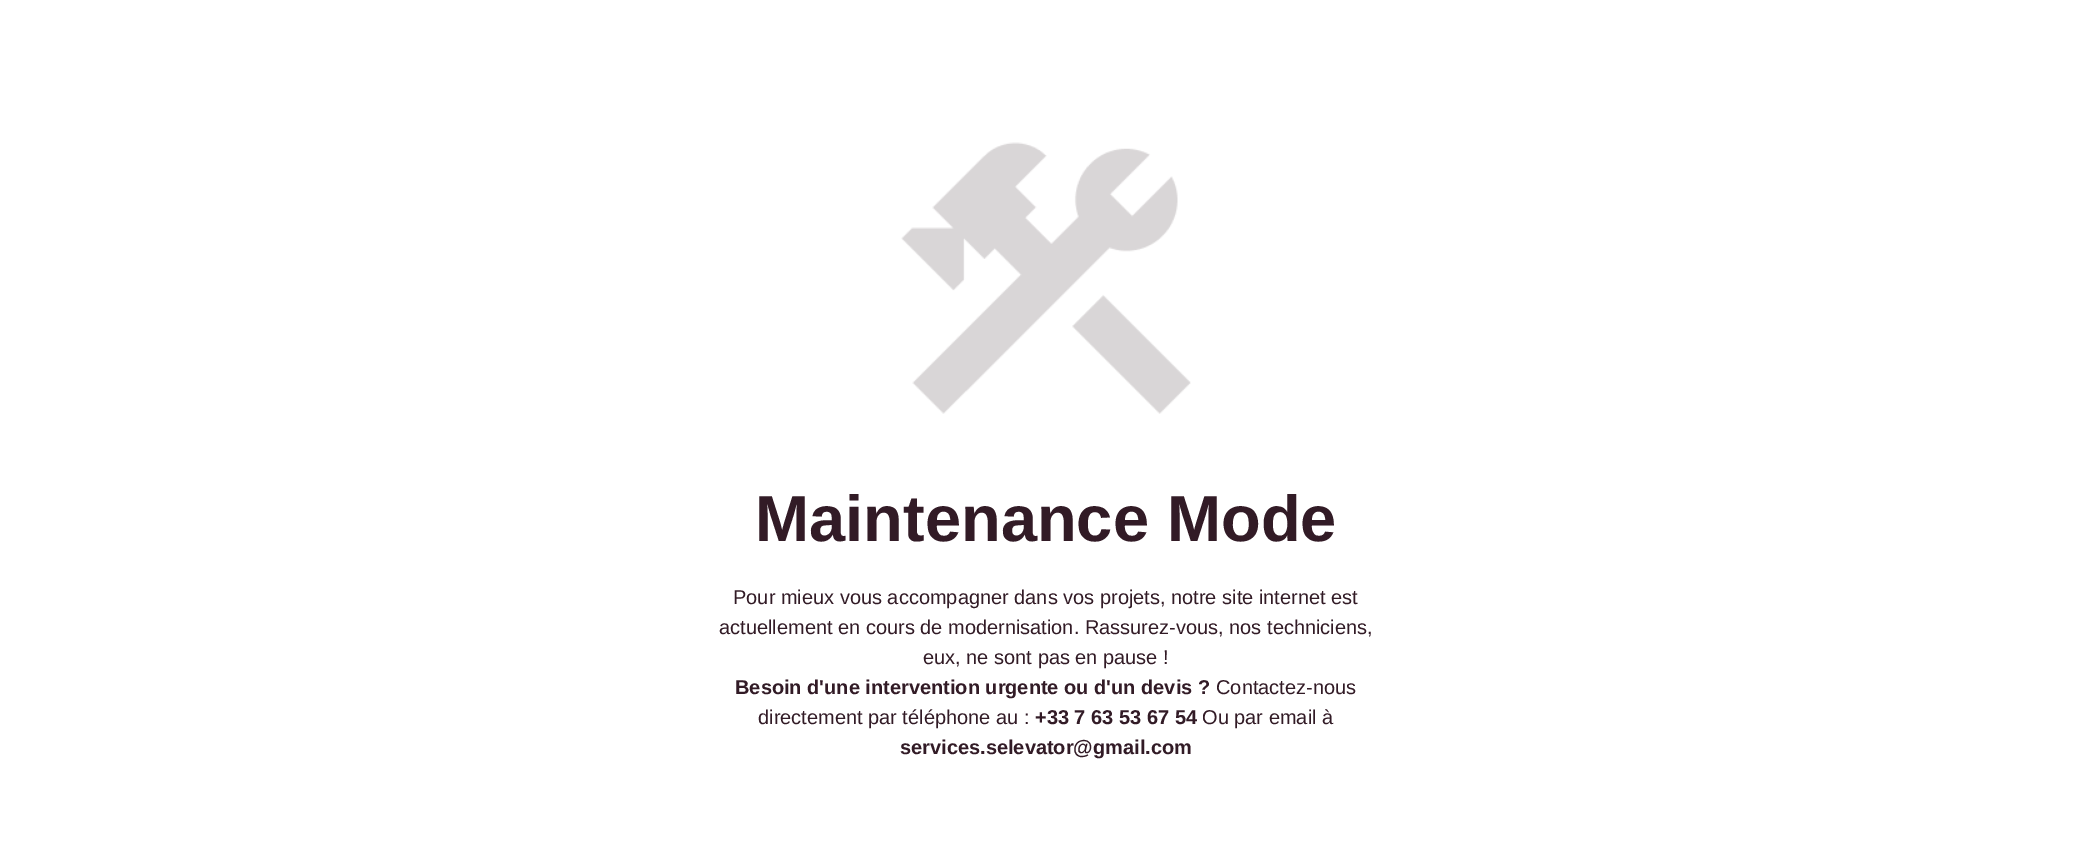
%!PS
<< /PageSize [2091 867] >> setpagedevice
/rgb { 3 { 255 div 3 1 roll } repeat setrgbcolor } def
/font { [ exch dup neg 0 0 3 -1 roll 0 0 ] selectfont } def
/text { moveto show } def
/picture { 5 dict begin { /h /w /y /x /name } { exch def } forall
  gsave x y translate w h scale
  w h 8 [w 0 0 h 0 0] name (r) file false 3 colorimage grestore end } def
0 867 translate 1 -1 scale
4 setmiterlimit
255 255 255 rgb
0 0 2091 867 rectfill
(img_01.rgb) 901 142 290 272 picture
/LiberationSans-Bold 65 font
50 27 38 rgb
(Maintenance Mode) 755 541 text
/LiberationSans-Regular 20 font
(Pour mieux vous accompagner dans vos projets, notre site internet est) 733 604 text
(actuellement en cours de modernisation. Rassurez-vous, nos techniciens,) 719 634 text
(eux, ne sont pas en pause !) 923 664 text
/LiberationSans-Bold 20 font
(Besoin d'une intervention urgente ou d'un devis ?) 735 694 text
/LiberationSans-Regular 20 font
(Contactez-nous) 1216 694 text
(directement par téléphone au :) 758 724 text
/LiberationSans-Bold 20 font
(+33 7 63 53 67 54) 1035 724 text
/LiberationSans-Regular 20 font
(Ou par email à) 1202 724 text
/LiberationSans-Bold 20 font
(services.selevator@gmail.com) 900 754 text
showpage
